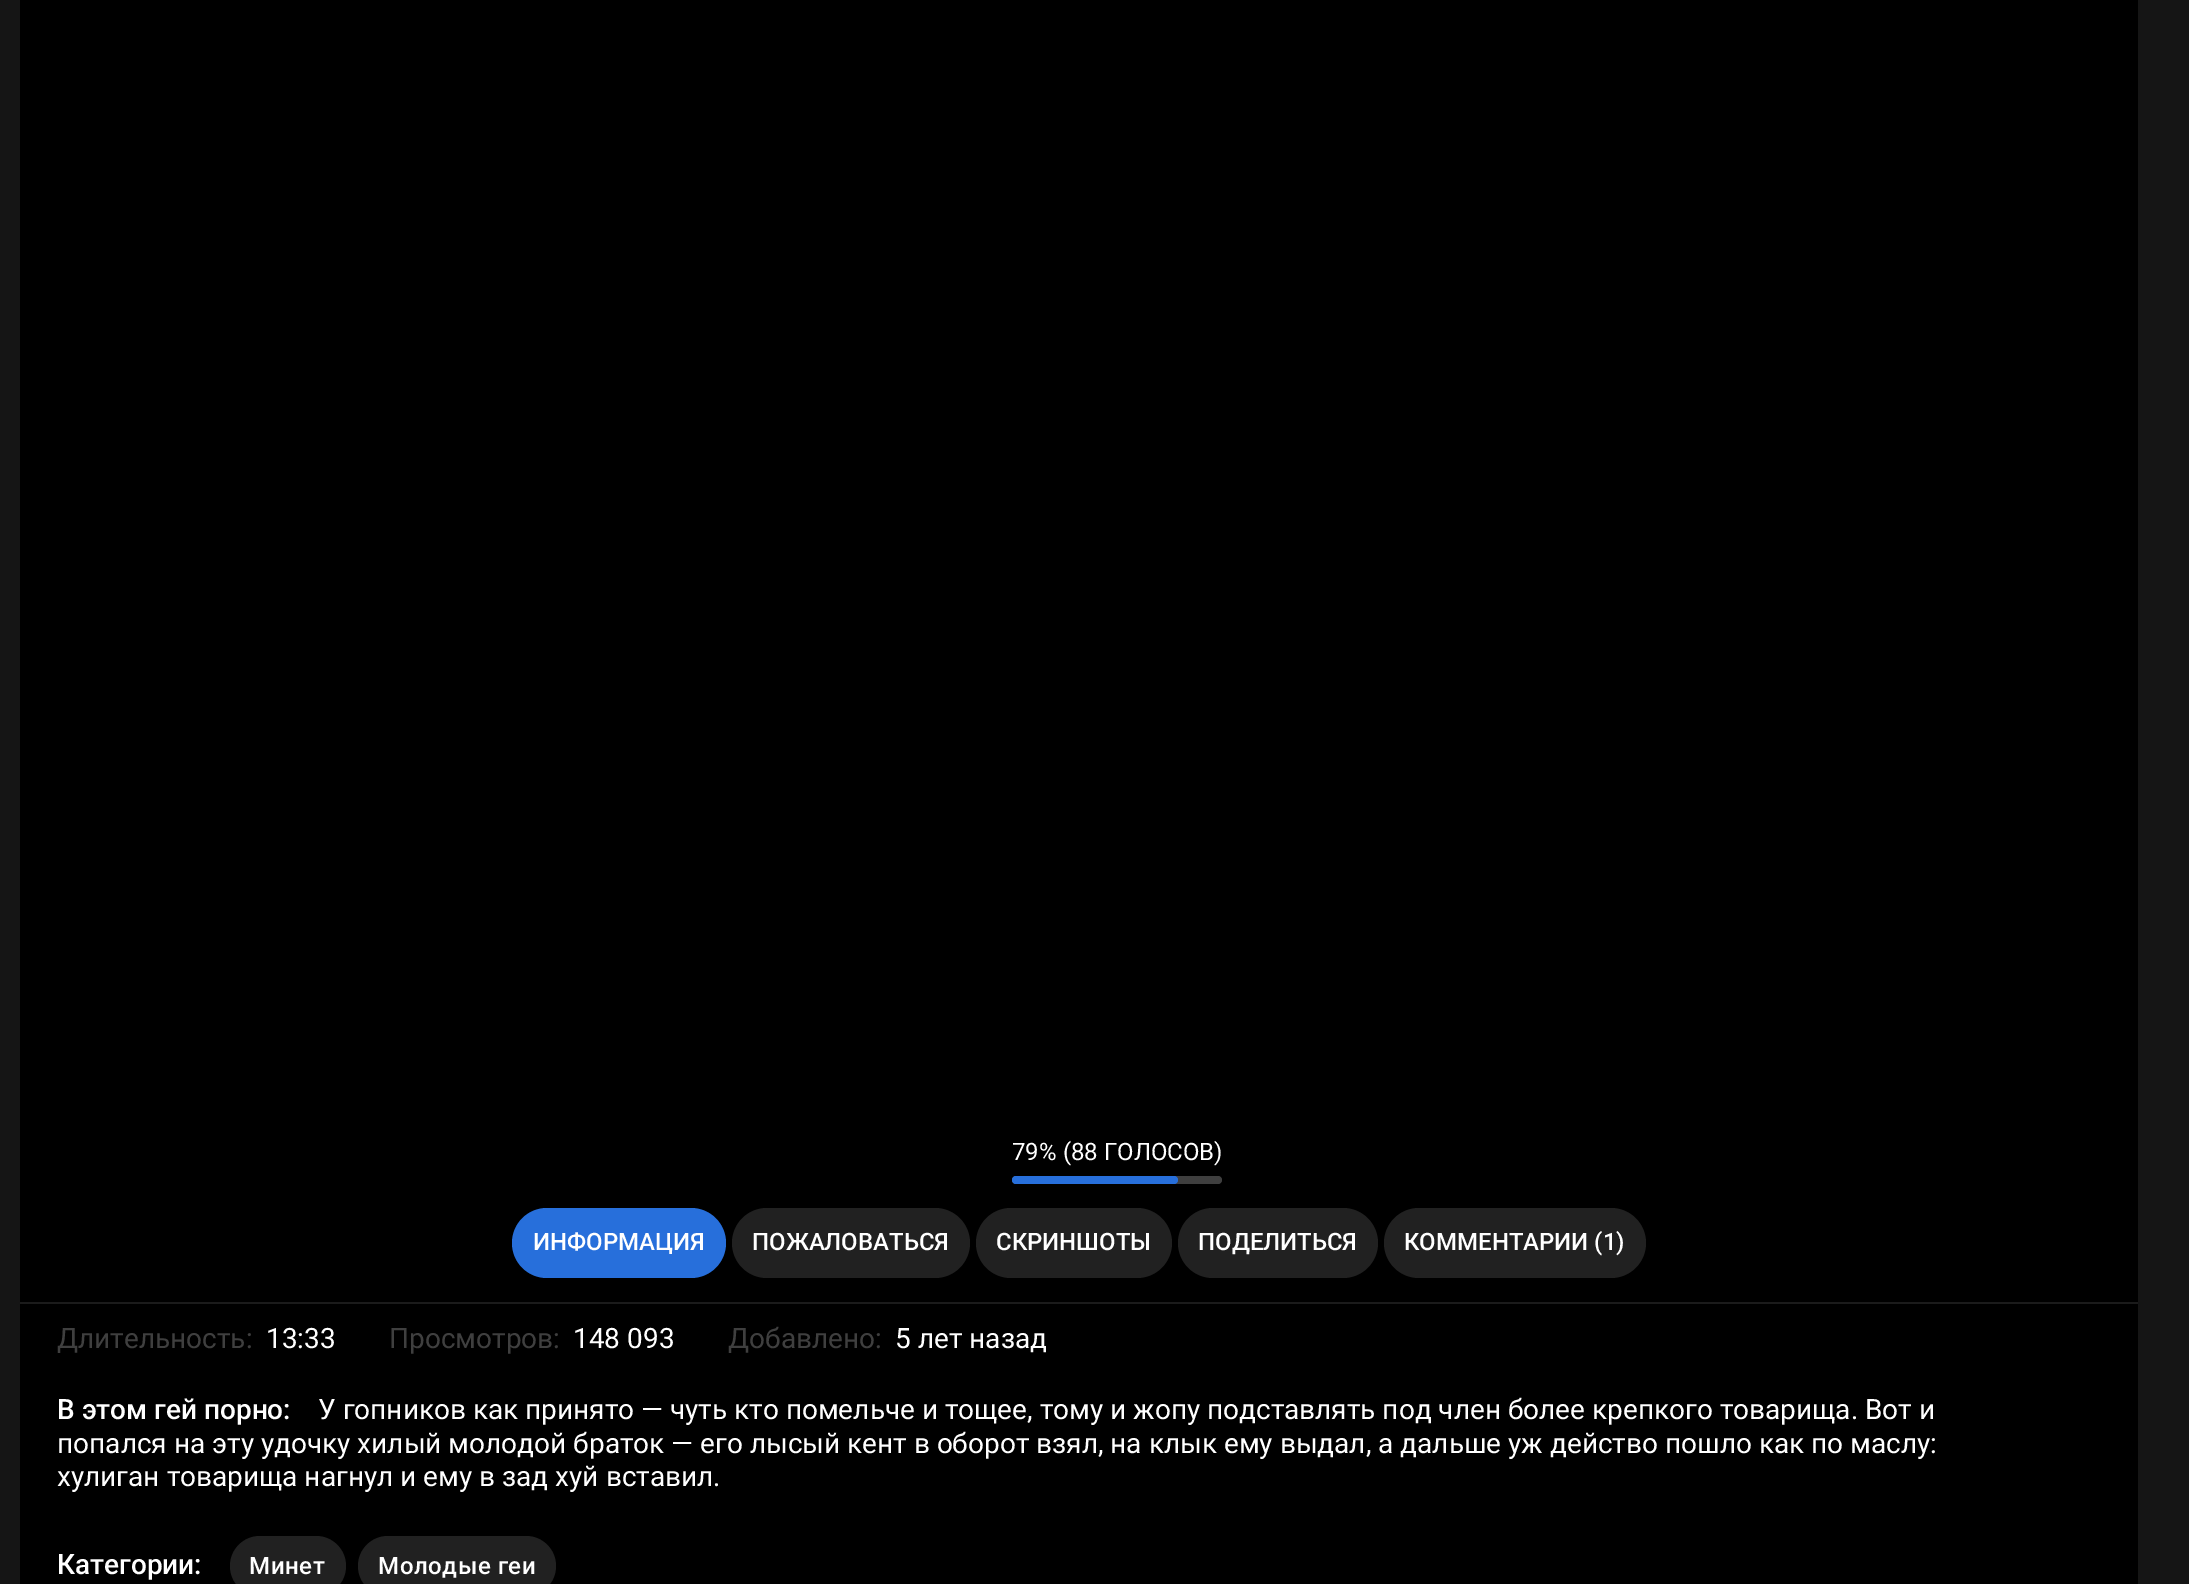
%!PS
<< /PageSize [2189 1584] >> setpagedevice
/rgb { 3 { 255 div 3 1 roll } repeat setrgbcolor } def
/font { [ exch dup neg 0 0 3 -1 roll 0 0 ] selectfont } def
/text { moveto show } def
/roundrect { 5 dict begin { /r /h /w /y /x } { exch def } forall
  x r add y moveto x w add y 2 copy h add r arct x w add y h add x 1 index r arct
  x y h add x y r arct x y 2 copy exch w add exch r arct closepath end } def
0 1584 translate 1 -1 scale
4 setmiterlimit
21 21 21 rgb
0 0 2189 1584 rectfill
0 0 0 rgb
20 0 2118 1584 rectfill
27 27 27 rgb
20 1302 2118 2 rectfill
63 63 63 rgb
1012 1176 210 8 4 roundrect fill
39 111 219 rgb
1012 1176 166 8 4 roundrect fill
512 1208 214 70 35 roundrect fill
33 33 33 rgb
732 1208 238 70 35 roundrect fill
976 1208 196 70 35 roundrect fill
1178 1208 200 70 35 roundrect fill
1384 1208 262 70 35 roundrect fill
230 1536 116 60 30 roundrect fill
358 1536 198 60 30 roundrect fill
/Roboto-Regular 24 font
255 255 255 rgb
(79% \(88 ГОЛОСОВ\)) 1012 1160 text
/Roboto-Medium 24 font
(ИНФОРМАЦИЯ) 533 1250 text
(ПОЖАЛОВАТЬСЯ) 752 1250 text
(СКРИНШОТЫ) 996 1250 text
(ПОДЕЛИТЬСЯ) 1198 1250 text
(КОММЕНТАРИИ \(1\)) 1404 1250 text
/Roboto-Regular 28 font
63 63 63 rgb
(Длительность:) 57 1348 text
255 255 255 rgb
(13:33) 266 1348 text
63 63 63 rgb
(Просмотров:) 389 1348 text
255 255 255 rgb
(148 093) 573 1348 text
63 63 63 rgb
(Добавлено:) 728 1348 text
255 255 255 rgb
(5 лет назад) 895 1348 text
/Roboto-Medium 28 font
(В этом гей порно:) 57 1419 text
/Roboto-Regular 28 font
(У гопников как принято — чуть кто помельче и тощее, тому и жопу подставлять под член более крепкого товарища. Вот и) 318 1419 text
(попался на эту удочку хилый молодой браток — его лысый кент в оборот взял, на клык ему выдал, а дальше уж действо пошло как по маслу:) 57 1453 text
(хулиган товарища нагнул и ему в зад хуй вставил.) 57 1486 text
/Roboto-Medium 28 font
(Категории:) 57 1574 text
/Roboto-Medium 24 font
249 1574 moveto 0.6 0 (Минет) ashow
378 1574 moveto 0.6 0 (Молодые геи) ashow
showpage
